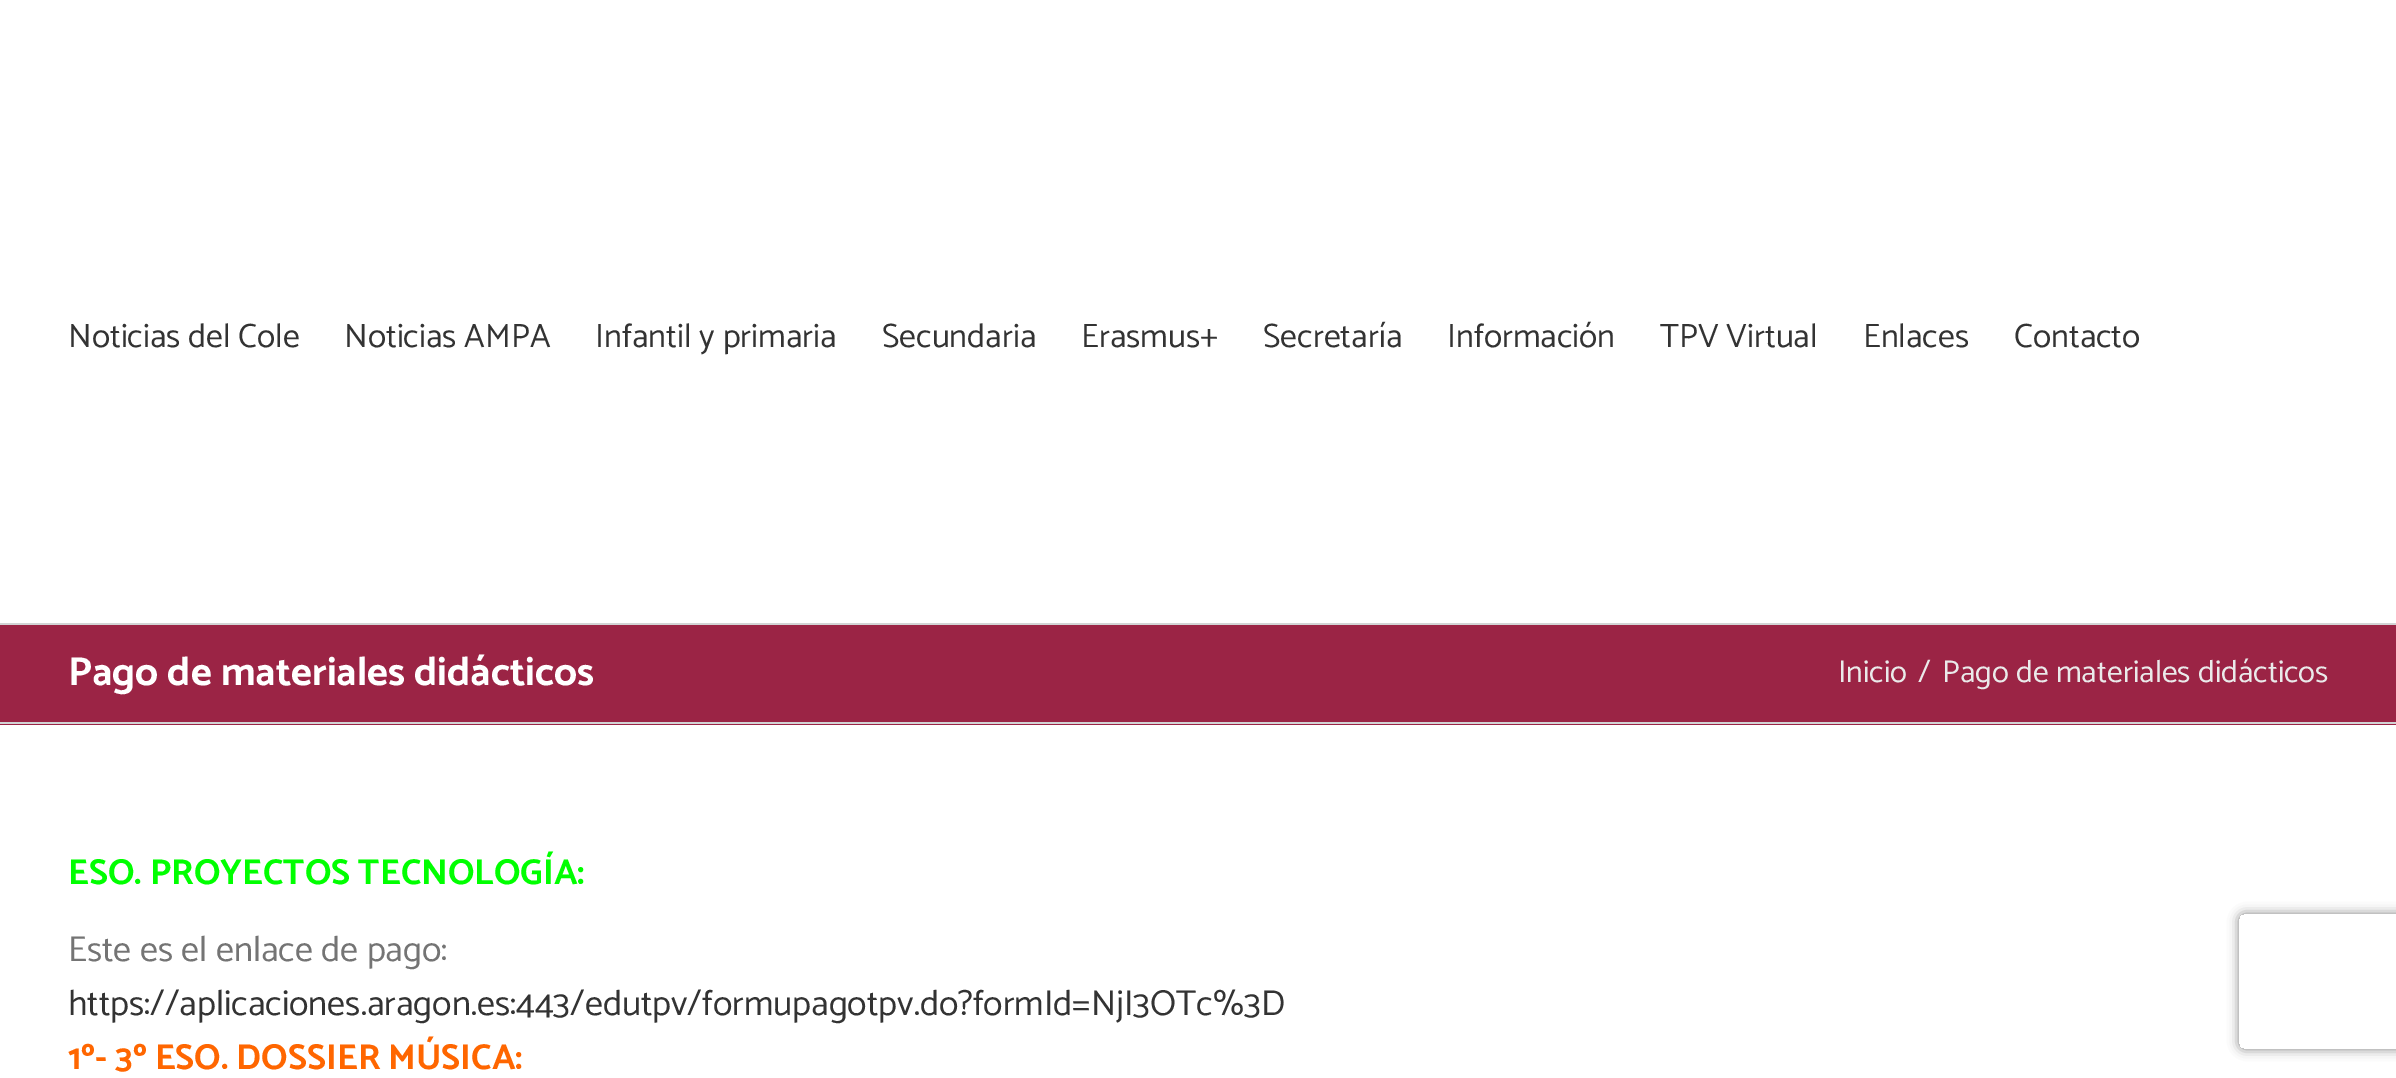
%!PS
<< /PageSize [2396 1078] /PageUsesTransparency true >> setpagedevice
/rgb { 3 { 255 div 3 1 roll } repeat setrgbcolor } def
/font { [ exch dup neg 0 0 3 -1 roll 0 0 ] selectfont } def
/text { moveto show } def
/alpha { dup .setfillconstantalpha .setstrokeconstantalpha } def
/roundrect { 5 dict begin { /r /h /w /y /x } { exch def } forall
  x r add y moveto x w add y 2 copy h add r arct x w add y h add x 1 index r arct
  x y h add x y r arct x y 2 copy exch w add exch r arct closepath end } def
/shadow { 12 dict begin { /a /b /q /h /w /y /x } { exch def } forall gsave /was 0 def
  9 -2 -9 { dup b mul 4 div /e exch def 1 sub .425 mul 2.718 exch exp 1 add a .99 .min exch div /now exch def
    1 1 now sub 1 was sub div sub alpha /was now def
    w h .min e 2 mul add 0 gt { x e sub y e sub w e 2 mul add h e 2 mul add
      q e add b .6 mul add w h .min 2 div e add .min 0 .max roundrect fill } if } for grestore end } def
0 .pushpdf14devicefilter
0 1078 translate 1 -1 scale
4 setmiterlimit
255 255 255 rgb
0 0 2396 1078 rectfill
155 36 69 rgb
0 625 2396 100 rectfill
210 211 212 rgb
0 623 2396 2 rectfill
0 722 2396 2 rectfill
gsave
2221 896 moveto 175 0 rlineto 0 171 rlineto -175 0 rlineto closepath 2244 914 moveto 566 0 rlineto 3 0 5 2 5 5 rcurveto 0 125 rlineto 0 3 -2 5 -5 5 rcurveto -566 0 rlineto -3 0 -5 -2 -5 -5 rcurveto 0 -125 rlineto 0 -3 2 -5 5 -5 rcurveto closepath eoclip newpath
128 128 128 rgb
2239 914 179 135 5 5.5 1 shadow
grestore
/Catamaran-Regular 33.75 font
51 51 51 rgb
(Noticias del Cole) 68 347 text
(Noticias AMPA) 344 347 text
(Infantil y primaria) 595 347 text
(Secundaria) 882 347 text
(Erasmus+) 1081 347 text
(Secretaría) 1263 347 text
(Información) 1447 347 text
(TPV Virtual) 1660 347 text
(Enlaces) 1863 347 text
(Contacto) 2014 347 text
/Catamaran-Bold 40.5 font
255 255 255 rgb
(Pago de materiales didácticos) 68 685 text
/Catamaran-Regular 31.5 font
234 234 234 rgb
(Inicio) 1838 682 text
(/) 1918 682 text
(Pago de materiales didácticos) 1942 682 text
/Catamaran-Bold 36 font
0 255 0 rgb
(ESO. PROYECTOS TECNOLOGÍA:) 68 884 text
/Catamaran-Regular 36 font
116 116 116 rgb
(Este es el enlace de pago:) 68 961 text
51 51 51 rgb
(https://aplicaciones.aragon.es:443/edutpv/formupagotpv.do?formId=NjI3OTc%3D) 68 1015 text
/Catamaran-Bold 36 font
255 102 0 rgb
(1º- 3º ESO. DOSSIER MÚSICA:) 68 1069 text
.poppdf14devicefilter showpage
